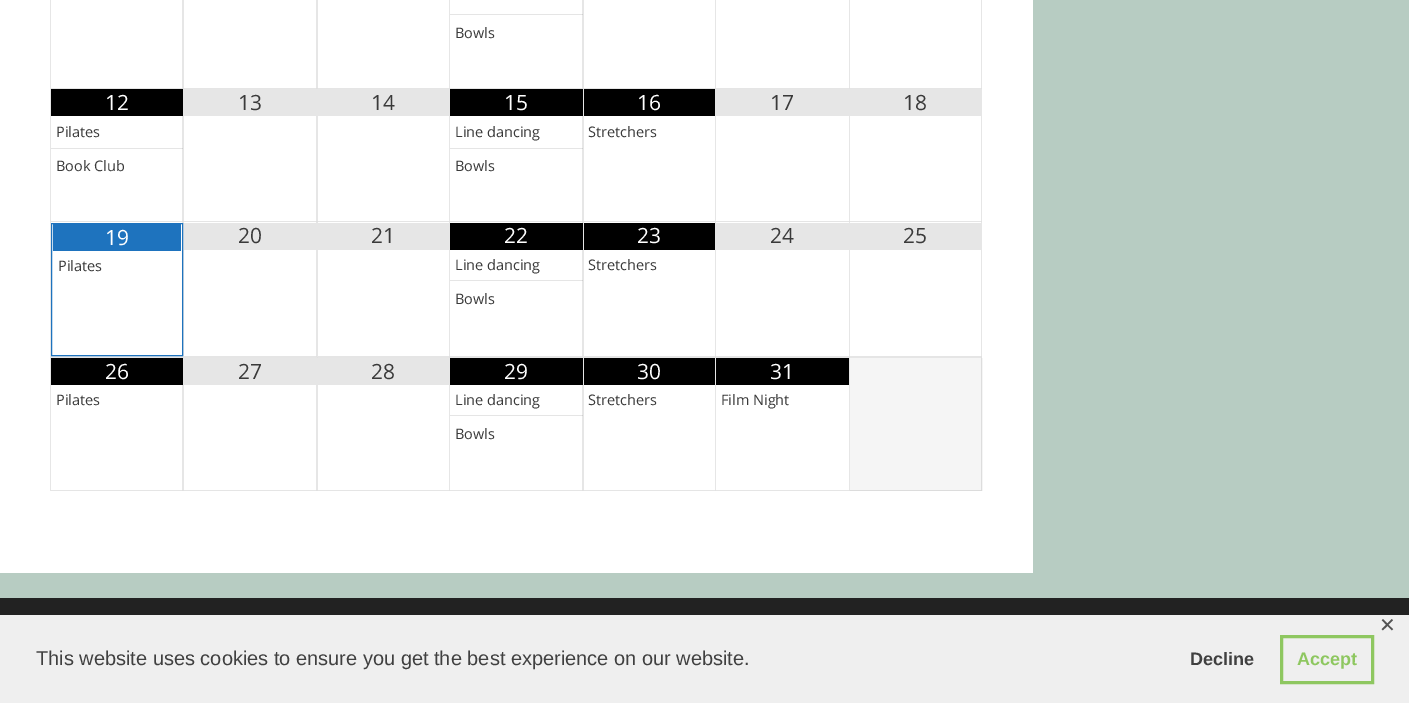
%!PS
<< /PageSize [1409 703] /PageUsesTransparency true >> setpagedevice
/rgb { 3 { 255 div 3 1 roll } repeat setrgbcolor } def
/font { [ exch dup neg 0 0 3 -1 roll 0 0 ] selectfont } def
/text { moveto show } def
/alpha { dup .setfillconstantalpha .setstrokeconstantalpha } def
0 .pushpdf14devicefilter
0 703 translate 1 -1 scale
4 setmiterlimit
183 204 194 rgb
0 0 1409 703 rectfill
255 255 255 rgb
0 0 1033 573 rectfill
230 230 230 rgb
50 491 moveto 0 -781 rlineto 1 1 rlineto 0 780 rlineto closepath fill
184 -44 moveto 0 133 rlineto -2 -1 rlineto 0 -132 rlineto closepath fill
0.1 alpha
0 0 0 rgb
184 89 moveto -133 0 rlineto 0 -1 rlineto 131 0 rlineto closepath fill
1 alpha
230 230 230 rgb
318 -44 moveto 0 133 rlineto -2 -1 rlineto 0 -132 rlineto closepath fill
0.1 alpha
0 0 0 rgb
318 89 moveto -134 0 rlineto 0 -1 rlineto 132 0 rlineto closepath fill
1 alpha
230 230 230 rgb
450 -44 moveto 0 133 rlineto -1 -1 rlineto 0 -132 rlineto closepath fill
0.1 alpha
0 0 0 rgb
450 89 moveto -132 0 rlineto 0 -1 rlineto 131 0 rlineto closepath fill
1 alpha
230 230 230 rgb
584 -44 moveto 0 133 rlineto -2 -1 rlineto 0 -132 rlineto closepath fill
0.1 alpha
0 0 0 rgb
584 89 moveto -134 0 rlineto 0 -1 rlineto 132 0 rlineto closepath fill
450 14 133 1 rectfill
1 alpha
230 230 230 rgb
716 -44 moveto 0 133 rlineto -1 -1 rlineto 0 -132 rlineto closepath fill
0.1 alpha
0 0 0 rgb
716 89 moveto -132 0 rlineto 0 -1 rlineto 131 0 rlineto closepath fill
1 alpha
230 230 230 rgb
850 -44 moveto 0 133 rlineto -1 -1 rlineto 0 -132 rlineto closepath fill
0.1 alpha
0 0 0 rgb
850 89 moveto -134 0 rlineto 0 -1 rlineto 133 0 rlineto closepath fill
1 alpha
230 230 230 rgb
982 -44 moveto 0 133 rlineto -1 -1 rlineto 0 -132 rlineto closepath fill
0.1 alpha
0 0 0 rgb
982 89 moveto -132 0 rlineto 0 -1 rlineto 131 0 rlineto closepath fill
1 alpha
230 230 230 rgb
184 89 moveto 0 133 rlineto -2 -1 rlineto 0 -132 rlineto closepath fill
0.1 alpha
0 0 0 rgb
184 222 moveto -133 0 rlineto 0 -1 rlineto 131 0 rlineto closepath fill
1 alpha
51 89 132 27 rectfill
0.1 alpha
51 148 132 1 rectfill
1 alpha
230 230 230 rgb
318 89 moveto 0 133 rlineto -2 -1 rlineto 0 -132 rlineto closepath fill
0.1 alpha
0 0 0 rgb
318 222 moveto -134 0 rlineto 0 -1 rlineto 132 0 rlineto closepath fill
1 alpha
230 230 230 rgb
184 89 132 27 rectfill
450 89 moveto 0 133 rlineto -1 -1 rlineto 0 -132 rlineto closepath fill
0.1 alpha
0 0 0 rgb
450 222 moveto -132 0 rlineto 0 -1 rlineto 131 0 rlineto closepath fill
1 alpha
230 230 230 rgb
318 89 131 27 rectfill
584 89 moveto 0 133 rlineto -2 -1 rlineto 0 -132 rlineto closepath fill
0.1 alpha
0 0 0 rgb
584 222 moveto -134 0 rlineto 0 -1 rlineto 132 0 rlineto closepath fill
1 alpha
450 89 133 27 rectfill
0.1 alpha
450 148 133 1 rectfill
1 alpha
230 230 230 rgb
716 89 moveto 0 133 rlineto -1 -1 rlineto 0 -132 rlineto closepath fill
0.1 alpha
0 0 0 rgb
716 222 moveto -132 0 rlineto 0 -1 rlineto 131 0 rlineto closepath fill
1 alpha
584 89 131 27 rectfill
230 230 230 rgb
850 89 moveto 0 133 rlineto -1 -1 rlineto 0 -132 rlineto closepath fill
0.1 alpha
0 0 0 rgb
850 222 moveto -134 0 rlineto 0 -1 rlineto 133 0 rlineto closepath fill
1 alpha
230 230 230 rgb
716 89 133 27 rectfill
982 89 moveto 0 133 rlineto -1 -1 rlineto 0 -132 rlineto closepath fill
0.1 alpha
0 0 0 rgb
982 222 moveto -132 0 rlineto 0 -1 rlineto 131 0 rlineto closepath fill
1 alpha
230 230 230 rgb
850 89 131 27 rectfill
184 222 moveto 0 136 rlineto -2 -2 rlineto 0 -134 rlineto closepath fill
0.1 alpha
0 0 0 rgb
184 358 moveto -133 0 rlineto 0 -2 rlineto 131 0 rlineto closepath fill
1 alpha
30 115 190 rgb
51.5 223.5 131 132 rectstroke
53 224 128 27 rectfill
230 230 230 rgb
318 222 moveto 0 136 rlineto -2 -2 rlineto 0 -134 rlineto closepath fill
0.1 alpha
0 0 0 rgb
318 358 moveto -134 0 rlineto 0 -2 rlineto 132 0 rlineto closepath fill
1 alpha
230 230 230 rgb
184 223 132 27 rectfill
450 222 moveto 0 136 rlineto -1 -2 rlineto 0 -134 rlineto closepath fill
0.1 alpha
0 0 0 rgb
450 358 moveto -132 0 rlineto 0 -2 rlineto 131 0 rlineto closepath fill
1 alpha
230 230 230 rgb
318 223 131 27 rectfill
584 222 moveto 0 136 rlineto -2 -2 rlineto 0 -134 rlineto closepath fill
0.1 alpha
0 0 0 rgb
584 358 moveto -134 0 rlineto 0 -2 rlineto 132 0 rlineto closepath fill
1 alpha
450 223 133 27 rectfill
0.1 alpha
450 280 133 1 rectfill
1 alpha
230 230 230 rgb
716 222 moveto 0 136 rlineto -1 -2 rlineto 0 -134 rlineto closepath fill
0.1 alpha
0 0 0 rgb
716 358 moveto -132 0 rlineto 0 -2 rlineto 131 0 rlineto closepath fill
1 alpha
584 223 131 27 rectfill
230 230 230 rgb
850 222 moveto 0 136 rlineto -1 -2 rlineto 0 -134 rlineto closepath fill
0.1 alpha
0 0 0 rgb
850 358 moveto -134 0 rlineto 0 -2 rlineto 133 0 rlineto closepath fill
1 alpha
230 230 230 rgb
716 223 133 27 rectfill
982 222 moveto 0 136 rlineto -1 -2 rlineto 0 -134 rlineto closepath fill
0.1 alpha
0 0 0 rgb
982 358 moveto -132 0 rlineto 0 -2 rlineto 131 0 rlineto closepath fill
1 alpha
230 230 230 rgb
850 223 131 27 rectfill
184 358 moveto 0 133 rlineto -2 -1 rlineto 0 -132 rlineto closepath fill
0.1 alpha
0 0 0 rgb
184 491 moveto -133 0 rlineto 0 -1 rlineto 131 0 rlineto closepath fill
1 alpha
51 358 132 27 rectfill
230 230 230 rgb
318 358 moveto 0 133 rlineto -2 -1 rlineto 0 -132 rlineto closepath fill
0.1 alpha
0 0 0 rgb
318 491 moveto -134 0 rlineto 0 -1 rlineto 132 0 rlineto closepath fill
1 alpha
230 230 230 rgb
184 358 132 27 rectfill
450 358 moveto 0 133 rlineto -1 -1 rlineto 0 -132 rlineto closepath fill
0.1 alpha
0 0 0 rgb
450 491 moveto -132 0 rlineto 0 -1 rlineto 131 0 rlineto closepath fill
1 alpha
230 230 230 rgb
318 358 131 27 rectfill
584 358 moveto 0 133 rlineto -2 -1 rlineto 0 -132 rlineto closepath fill
0.1 alpha
0 0 0 rgb
584 491 moveto -134 0 rlineto 0 -1 rlineto 132 0 rlineto closepath fill
1 alpha
450 358 133 27 rectfill
0.1 alpha
450 415 133 1 rectfill
1 alpha
230 230 230 rgb
716 358 moveto 0 133 rlineto -1 -1 rlineto 0 -132 rlineto closepath fill
0.1 alpha
0 0 0 rgb
716 491 moveto -132 0 rlineto 0 -1 rlineto 131 0 rlineto closepath fill
1 alpha
584 358 131 27 rectfill
230 230 230 rgb
850 358 moveto 0 133 rlineto -1 -1 rlineto 0 -132 rlineto closepath fill
0.1 alpha
0 0 0 rgb
850 491 moveto -134 0 rlineto 0 -1 rlineto 133 0 rlineto closepath fill
1 alpha
716 358 133 27 rectfill
245 245 245 rgb
850 358 133 133 rectfill
221 221 221 rgb
982 358 moveto 0 133 rlineto -1 -1 rlineto 0 -132 rlineto closepath fill
0.1 alpha
0 0 0 rgb
982 491 moveto -132 0 rlineto 0 -1 rlineto 131 0 rlineto closepath fill
1 alpha
34 34 34 rgb
0 598 1409 17 rectfill
239 239 239 rgb
0 615 1409 88 rectfill
142 199 96 rgb
3 setlinewidth
1281.5 636.5 91 46 rectstroke
/OpenSans-Regular 14.5 font
58 58 58 rgb
(Bowls) 455 38 text
/OpenSans-Regular 21 font
255 255 255 rgb
(12) 105 110 text
/OpenSans-Regular 14.5 font
58 58 58 rgb
(Pilates) 56 137 text
(Book Club) 56 171 text
/OpenSans-Regular 21 font
(13) 238 110 text
(14) 371 110 text
255 255 255 rgb
(15) 504 110 text
/OpenSans-Regular 14.5 font
58 58 58 rgb
(Line dancing) 455 137 text
(Bowls) 455 171 text
/OpenSans-Regular 21 font
255 255 255 rgb
(16) 637 110 text
/OpenSans-Regular 14.5 font
58 58 58 rgb
(Stretchers) 588 137 text
/OpenSans-Regular 21 font
(17) 770 110 text
(18) 903 110 text
255 255 255 rgb
(19) 105 245 text
/OpenSans-Regular 14.5 font
58 58 58 rgb
(Pilates) 58 271 text
/OpenSans-Regular 21 font
(20) 238 243 text
(21) 371 243 text
255 255 255 rgb
(22) 504 243 text
/OpenSans-Regular 14.5 font
58 58 58 rgb
(Line dancing) 455 270 text
(Bowls) 455 304 text
/OpenSans-Regular 21 font
255 255 255 rgb
(23) 637 243 text
/OpenSans-Regular 14.5 font
58 58 58 rgb
(Stretchers) 588 270 text
/OpenSans-Regular 21 font
(24) 770 243 text
(25) 903 243 text
255 255 255 rgb
(26) 105 379 text
/OpenSans-Regular 14.5 font
58 58 58 rgb
(Pilates) 56 405 text
/OpenSans-Regular 21 font
(27) 238 379 text
(28) 371 379 text
255 255 255 rgb
(29) 504 379 text
/OpenSans-Regular 14.5 font
58 58 58 rgb
(Line dancing) 455 405 text
(Bowls) 455 439 text
/OpenSans-Regular 21 font
255 255 255 rgb
(30) 637 379 text
/OpenSans-Regular 14.5 font
58 58 58 rgb
(Stretchers) 588 405 text
/OpenSans-Regular 21 font
255 255 255 rgb
(31) 770 379 text
/OpenSans-Regular 14.5 font
58 58 58 rgb
(Film Night) 721 405 text
/DejaVuSans-Regular 20 font
82 82 82 rgb
(✕) 1379 632 text
/LiberationSans-Regular 20 font
64 64 64 rgb
(This website uses cookies to ensure you get the best experience on our website.) 36 665 text
/LiberationSans-Bold 18 font
(Decline) 1190 665 text
142 199 96 rgb
(Accept) 1297 665 text
.poppdf14devicefilter showpage
